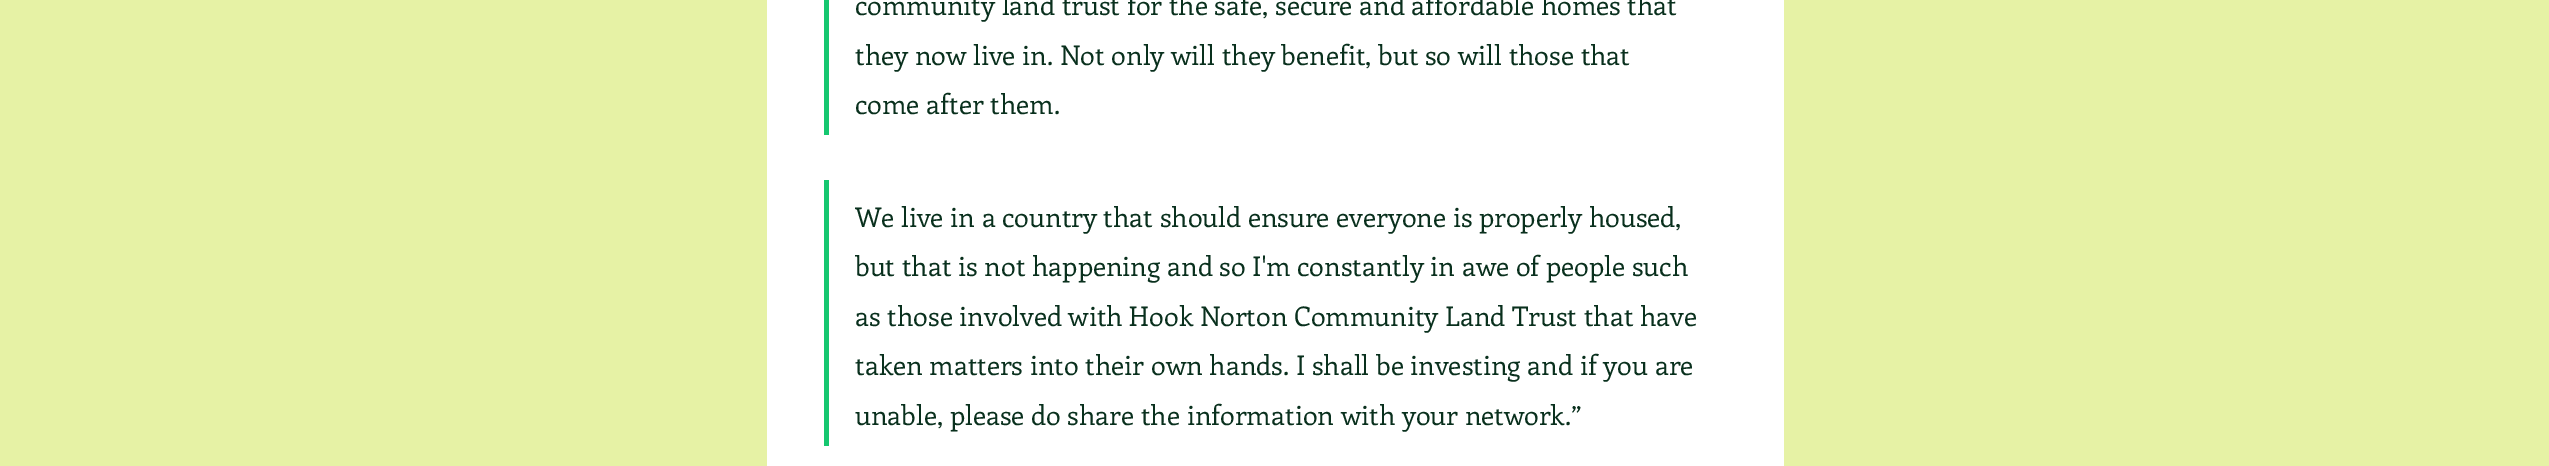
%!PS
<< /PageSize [2549 466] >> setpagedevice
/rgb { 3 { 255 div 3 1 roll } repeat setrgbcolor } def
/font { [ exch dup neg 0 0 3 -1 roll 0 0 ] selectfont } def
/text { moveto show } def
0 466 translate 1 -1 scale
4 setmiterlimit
230 242 165 rgb
0 0 2549 466 rectfill
255 255 255 rgb
767 0 1017 466 rectfill
21 199 112 rgb
824 0 5 135 rectfill
824 180 5 266 rectfill
/Enriqueta-Regular 27 font
9 48 29 rgb
(community land trust for the safe, secure and affordable homes that) 855 15 text
(they now live in. Not only will they benefit, but so will those that) 855 65 text
(come after them.) 855 114 text
(We live in a country that should ensure everyone is properly housed,) 855 227 text
(but that is not happening and so I'm constantly in awe of people such) 855 276 text
(as those involved with Hook Norton Community Land Trust that have) 855 326 text
(taken matters into their own hands. I shall be investing and if you are) 855 375 text
(unable, please do share the information with your network.”) 855 425 text
showpage
